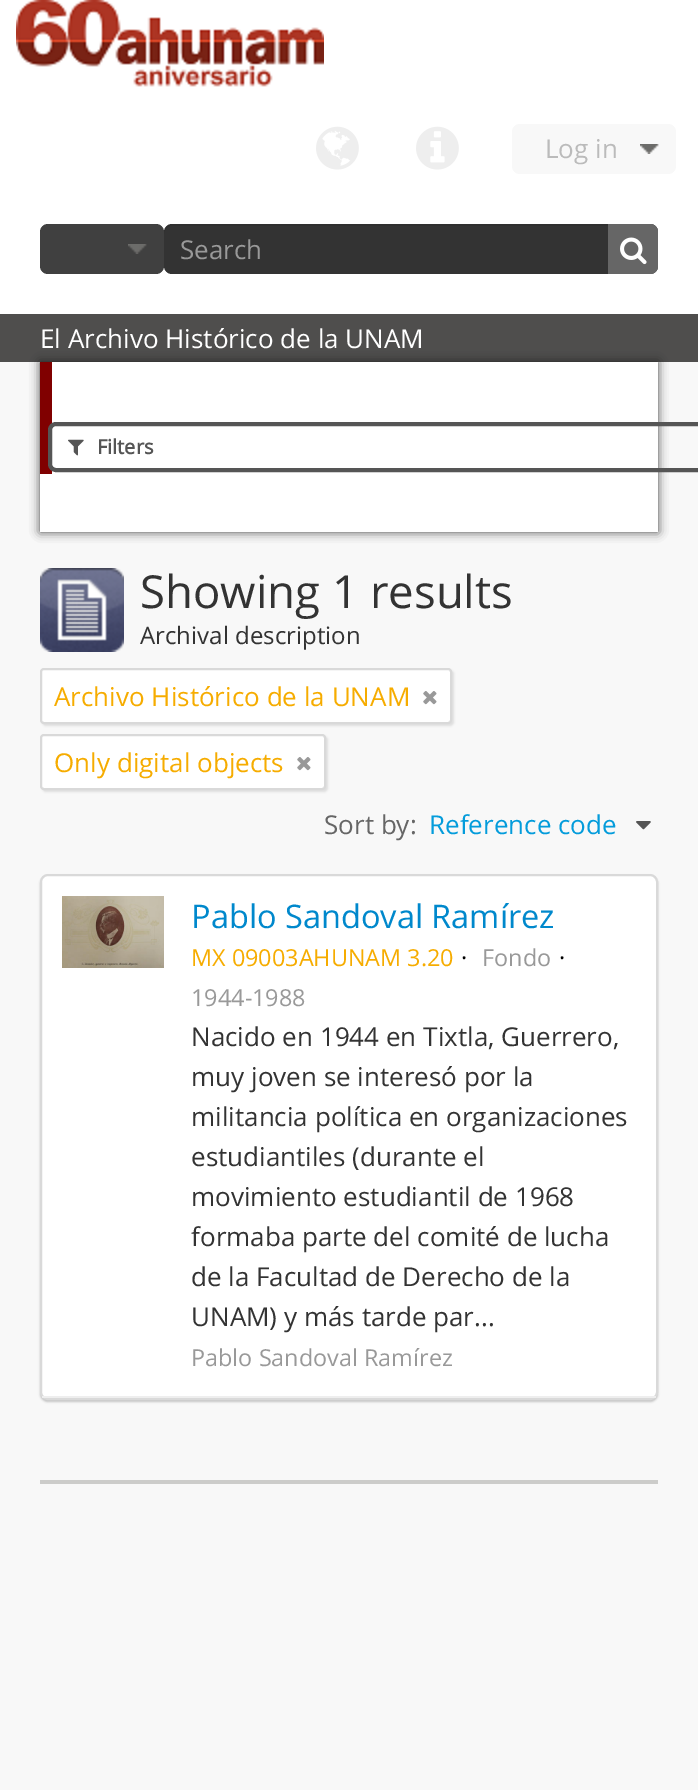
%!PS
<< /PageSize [698 1790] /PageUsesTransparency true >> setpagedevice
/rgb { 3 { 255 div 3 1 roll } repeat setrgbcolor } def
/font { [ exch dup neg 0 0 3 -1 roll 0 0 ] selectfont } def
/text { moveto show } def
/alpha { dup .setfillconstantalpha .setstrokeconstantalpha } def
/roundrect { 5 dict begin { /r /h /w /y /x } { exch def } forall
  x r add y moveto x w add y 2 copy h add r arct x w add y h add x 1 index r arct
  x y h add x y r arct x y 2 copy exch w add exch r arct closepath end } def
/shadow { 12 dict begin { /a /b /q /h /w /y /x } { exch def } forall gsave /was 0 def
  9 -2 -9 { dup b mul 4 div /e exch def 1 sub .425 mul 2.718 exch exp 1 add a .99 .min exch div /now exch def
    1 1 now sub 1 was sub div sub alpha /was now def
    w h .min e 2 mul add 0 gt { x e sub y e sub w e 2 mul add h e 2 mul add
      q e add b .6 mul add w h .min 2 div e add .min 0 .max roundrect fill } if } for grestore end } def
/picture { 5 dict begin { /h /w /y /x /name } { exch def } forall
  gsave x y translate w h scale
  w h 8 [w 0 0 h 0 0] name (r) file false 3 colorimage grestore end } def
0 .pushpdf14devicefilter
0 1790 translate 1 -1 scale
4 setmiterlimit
248 248 248 rgb
0 0 698 1790 rectfill
255 255 255 rgb
0 0 698 314 rectfill
(img_01.rgb) 16 0 308 87 picture
(img_02.rgb) 316 126 43 44 picture
(img_03.rgb) 416 126 43 44 picture
248 248 248 rgb
512 124 164 50 8 roundrect fill
(img_04.rgb) 640 144 19 10 picture
64 64 64 rgb
40 224 124 50 8 roundrect fill
(img_05.rgb) 128 244 19 10 picture
51 51 51 rgb
164 224 494 50 8 roundrect fill
0.07 alpha
0 0 0 rgb
172 226 moveto 478 0 rlineto 4 0 8 4 8 8 rcurveto 0 -2 rlineto 0 -4 -4 -8 -8 -8 rcurveto -478 0 rlineto -4 0 -8 4 -8 8 rcurveto 0 2 rlineto 0 -4 4 -8 8 -8 rcurveto closepath fill
1 alpha
102 102 102 rgb
608 224 moveto 42 0 rlineto 4.5 0 8 3.5 8 8 rcurveto 0 34 rlineto 0 4.5 -3.5 8 -8 8 rcurveto -42 0 rlineto closepath fill
(img_06.rgb) 620 237 27 28 picture
68 68 68 rgb
40 362 618 170 0 5 1 shadow
0.75 alpha
22 21 20 rgb
0 314 698 48 rectfill
1 alpha
255 255 255 rgb
40 362 618 170 rectfill
128 0 0 rgb
40 362 12 112 rectfill
85 85 85 rgb
4 setlinewidth
50 424 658 46 6 roundrect stroke
(img_07.rgb) 68 439 16 17 picture
(img_08.rgb) 40 568 84 84 picture
0 0 0 rgb
42 670 412 56 4 1 0.1 shadow
255 255 255 rgb
41 669 410 54 3 roundrect gsave fill grestore
217 217 217 rgb
2 setlinewidth
stroke
(img_09.rgb) 423 691 14 14 picture
0 0 0 rgb
42 736 286 56 4 1 0.1 shadow
255 255 255 rgb
41 735 284 54 3 roundrect gsave fill grestore
217 217 217 rgb
stroke
(img_09.rgb) 297 757 14 14 picture
(img_10.rgb) 636 821 15 9 picture
0 0 0 rgb
40 876 618 526 8 1 0.2 shadow
255 255 255 rgb
41 875 616 524 7 roundrect gsave fill grestore
217 217 217 rgb
stroke
238 238 238 rgb
42 1396 614 2 rectfill
(img_11.rgb) 62 896 102 72 picture
204 204 202 rgb
40 1480 618 4 rectfill
/OpenSans-Regular 26 font
187 187 187 rgb
(Log in) 545 158 text
153 153 153 rgb
(Search) 180 259 text
255 255 255 rgb
(El Archivo Histórico de la UNAM) 40 348 text
/OpenSans-Bold 20 font
85 85 85 rgb
(Filters) 97 454 text
/OpenSans-Regular 45.5 font
51 51 51 rgb
(Showing 1 results) 140 608 text
/OpenSans-Regular 24 font
(Archival description) 140 644 text
/OpenSans-Regular 26 font
246 172 0 rgb
(Archivo Histórico de la UNAM) 54 706 text
(Only digital objects) 54 772 text
102 102 102 rgb
(Sort by:) 324 834 text
4 156 219 rgb
(Reference code) 429 834 text
/OpenSans-Regular 32.5 font
0 136 204 rgb
(Pablo Sandoval Ramírez) 191 928 text
/OpenSans-Regular 23.4 font
246 172 0 rgb
(MX 09003AHUNAM 3.20) 191 966 text
0 0 0 rgb
(·) 461 966 text
153 153 153 rgb
(Fondo) 482 966 text
0 0 0 rgb
(·) 559 966 text
153 153 153 rgb
(1944-1988) 191 1006 text
/OpenSans-Regular 26 font
51 51 51 rgb
(Nacido en 1944 en Tixtla, Guerrero,) 191 1046 text
(muy joven se interesó por la) 191 1086 text
(militancia política en organizaciones) 191 1126 text
(estudiantiles \(durante el) 191 1166 text
(movimiento estudiantil de 1968) 191 1206 text
(formaba parte del comité de lucha) 191 1246 text
(de la Facultad de Derecho de la) 191 1286 text
(UNAM\) y más tarde par...) 191 1326 text
/OpenSans-Regular 23.4 font
153 153 153 rgb
(Pablo Sandoval Ramírez) 191 1366 text
.poppdf14devicefilter showpage
